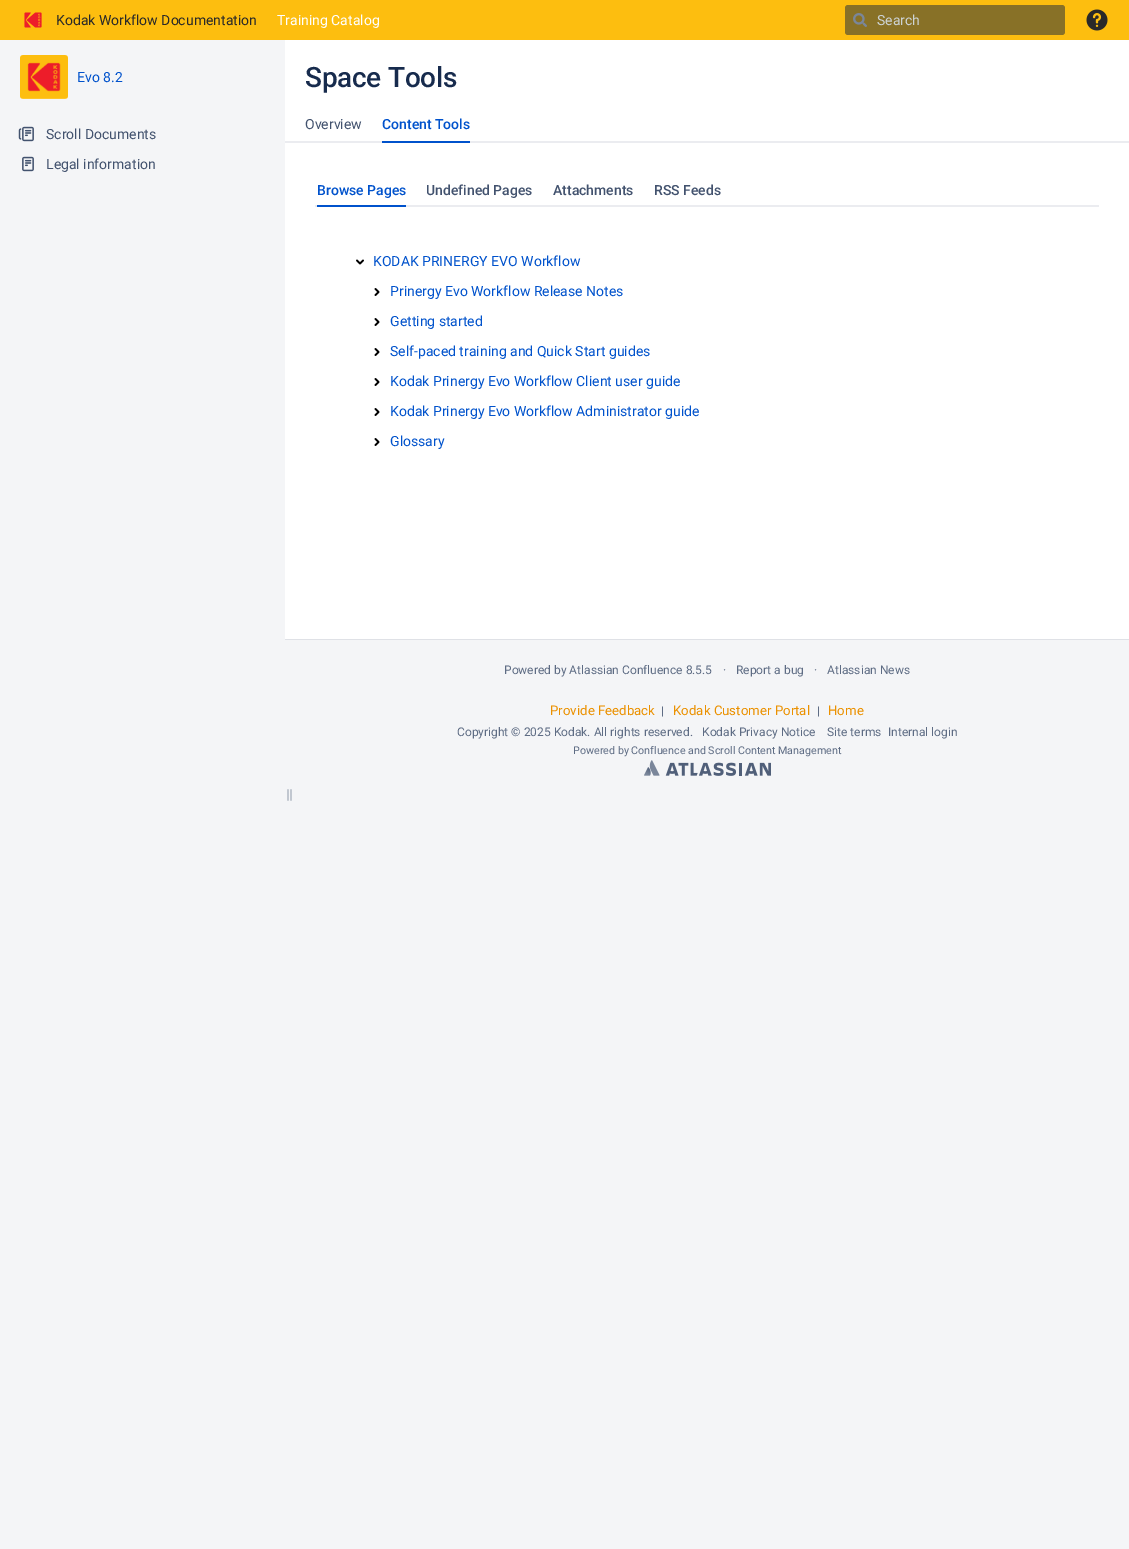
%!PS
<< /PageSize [1129 1549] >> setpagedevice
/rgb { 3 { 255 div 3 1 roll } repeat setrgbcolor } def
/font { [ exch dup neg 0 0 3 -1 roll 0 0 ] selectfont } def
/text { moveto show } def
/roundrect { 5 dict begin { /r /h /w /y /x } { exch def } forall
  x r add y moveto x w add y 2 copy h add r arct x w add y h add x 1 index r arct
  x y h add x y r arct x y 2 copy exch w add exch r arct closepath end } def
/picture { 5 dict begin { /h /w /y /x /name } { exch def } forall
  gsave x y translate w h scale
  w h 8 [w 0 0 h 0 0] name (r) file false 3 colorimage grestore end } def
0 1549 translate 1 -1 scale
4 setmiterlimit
244 245 247 rgb
0 0 1129 1549 rectfill
253 190 15 rgb
0 0 1129 40 rectfill
(img_01.rgb) 24 12 18 16 picture
136 113 39 rgb
845 5 220 30 3 roundrect fill
(img_02.rgb) 853 13 14 14 picture
(img_03.rgb) 1086 9 22 22 picture
(img_04.rgb) 20 55 48 44 picture
(img_05.rgb) 18 126 16 16 picture
(img_06.rgb) 22 156 12 16 picture
(img_07.rgb) 287 789 5 12 picture
255 255 255 rgb
285 40 844 599 rectfill
223 225 230 rgb
285 639 844 1 rectfill
235 236 240 rgb
285 141 844 2 rectfill
0 82 204 rgb
382 141 88 2 rectfill
235 236 240 rgb
315 205 784 2 rectfill
0 82 204 rgb
317 205 89 2 rectfill
(img_08.rgb) 356 259 8 6 picture
(img_09.rgb) 374 288 6 8 picture
(img_09.rgb) 374 318 6 8 picture
(img_09.rgb) 374 348 6 8 picture
(img_09.rgb) 374 378 6 8 picture
(img_09.rgb) 374 408 6 8 picture
(img_09.rgb) 374 438 6 8 picture
(img_10.rgb) 644 760 127 16 picture
/Roboto-Regular 14 font
41 41 41 rgb
(Kodak Workflow Documentation) 56 25 text
255 255 255 rgb
(Training Catalog) 277 25 text
205 211 212 rgb
(Search) 877 25 text
0 82 204 rgb
(Evo 8.2) 77 82 text
66 82 110 rgb
(Scroll Documents) 46 139 text
(Legal information) 46 169 text
/Roboto-Medium 28 font
23 43 77 rgb
305 87 moveto -0.25 0 (Space Tools) ashow
/Roboto-Regular 14 font
66 82 110 rgb
(Overview) 305 129 text
/Roboto-Medium 14 font
0 82 204 rgb
(Content Tools) 382 129 text
(Browse Pages) 317 195 text
66 82 110 rgb
(Undefined Pages) 426 195 text
(Attachments) 553 195 text
(RSS Feeds) 654 195 text
/Roboto-Regular 14 font
0 82 204 rgb
(KODAK PRINERGY EVO Workflow) 373 266 text
(Prinergy Evo Workflow Release Notes) 390 296 text
(Getting started) 390 326 text
(Self-paced training and Quick Start guides) 390 356 text
(Kodak Prinergy Evo Workflow Client user guide) 390 386 text
(Kodak Prinergy Evo Workflow Administrator guide) 390 416 text
(Glossary) 390 446 text
/Roboto-Regular 12 font
94 108 132 rgb
(Powered by Atlassian Confluence 8.5.5) 504 674 text
(·) 723 674 text
(Report a bug) 736 674 text
(·) 814 674 text
(Atlassian News) 827 674 text
/Roboto-Regular 13.25 font
235 145 0 rgb
(Provide Feedback) 550 715 text
/Roboto-Regular 12 font
94 108 132 rgb
(|) 661 715 text
/Roboto-Regular 13.25 font
235 145 0 rgb
(Kodak Customer Portal) 673 715 text
/Roboto-Regular 12 font
94 108 132 rgb
(|) 817 715 text
/Roboto-Regular 13.25 font
235 145 0 rgb
(Home) 828 715 text
/Roboto-Regular 12 font
94 108 132 rgb
(Copyright © 2025 Kodak. All rights reserved.) 457 736 text
(Kodak Privacy Notice) 702 736 text
(Site terms) 827 736 text
(Internal login) 888 736 text
/Roboto-Regular 10.7 font
(Powered by Confluence and Scroll Content Management) 573 754 text
showpage
